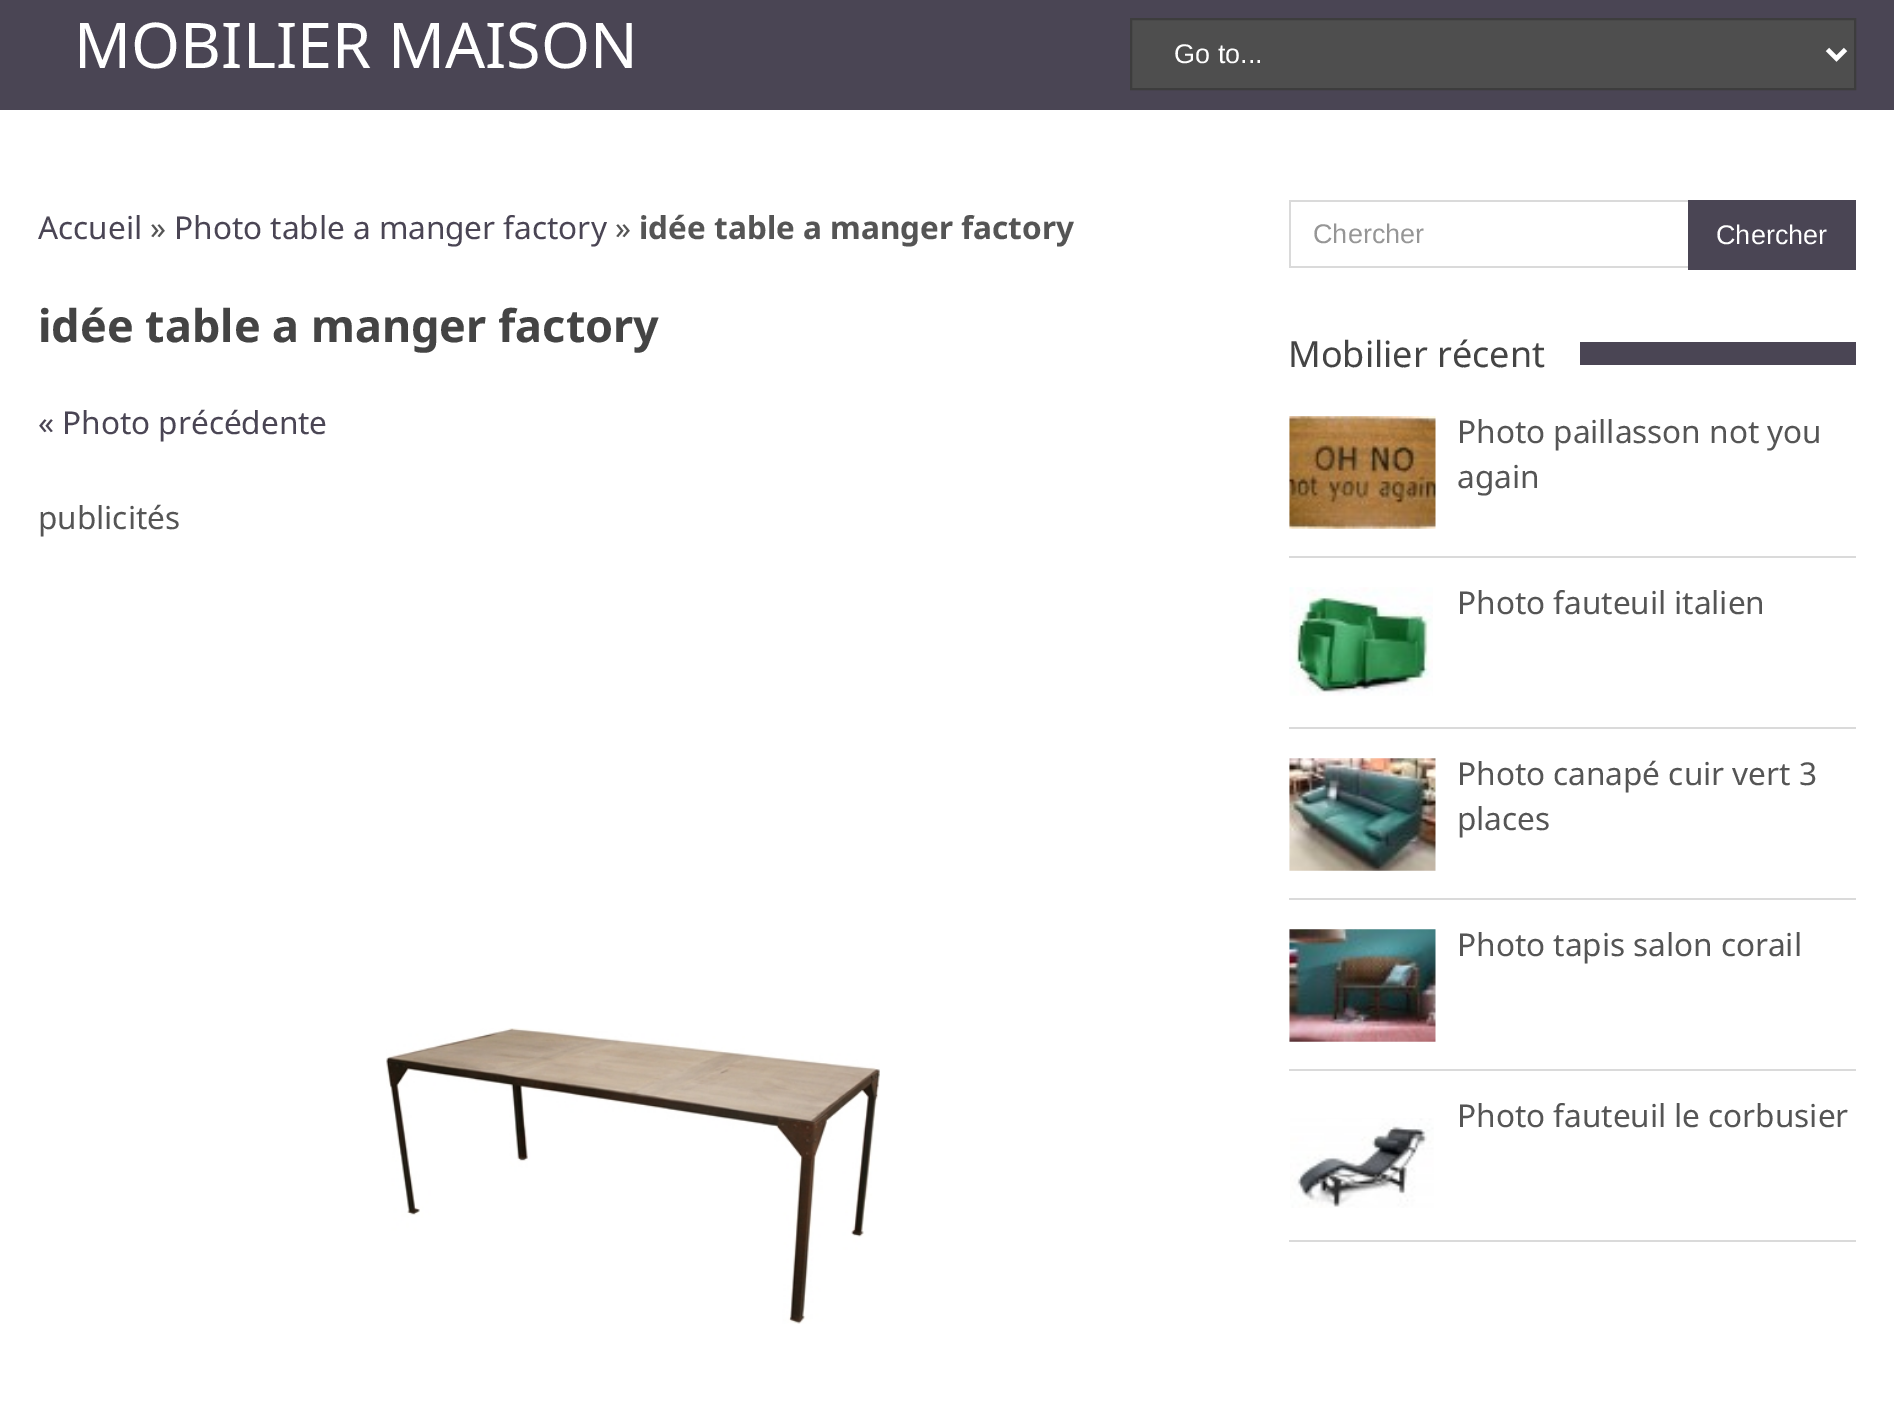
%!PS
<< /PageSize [1894 1418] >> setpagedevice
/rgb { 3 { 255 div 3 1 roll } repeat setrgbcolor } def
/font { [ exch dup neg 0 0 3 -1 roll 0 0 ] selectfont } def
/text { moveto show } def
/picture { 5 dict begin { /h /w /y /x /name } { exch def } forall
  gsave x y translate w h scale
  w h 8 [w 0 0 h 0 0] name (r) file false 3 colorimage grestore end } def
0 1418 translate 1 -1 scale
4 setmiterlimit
255 255 255 rgb
0 0 1894 1418 rectfill
74 69 84 rgb
0 0 1894 110 rectfill
78 78 78 rgb
1131 19 moveto 724 0 rlineto 0 70 rlineto -724 0 rlineto closepath gsave fill grestore
61 61 61 rgb
2 setlinewidth
stroke
255 255 255 rgb
4.5 setlinewidth
1827.5 49.5 moveto 9 9 rlineto 9 -9 rlineto stroke
(img_01.rgb) 386 1028 494 296 picture
218 218 218 rgb
1289 200 399 2 rectfill
1289 266 399 2 rectfill
1289 200 2 68 rectfill
74 69 84 rgb
1688 200 168 70 rectfill
1580 342 276 23 rectfill
218 218 218 rgb
1289 556 567 2 rectfill
(img_02.rgb) 1289 416 147 113 picture
1289 727 567 2 rectfill
(img_03.rgb) 1289 587 144 109 picture
1289 898 567 2 rectfill
(img_04.rgb) 1289 758 147 113 picture
1289 1069 567 2 rectfill
(img_05.rgb) 1289 929 147 113 picture
1289 1240 567 2 rectfill
(img_06.rgb) 1290 1118 144 90 picture
/NotoSans-Regular 63 font
255 255 255 rgb
(MOBILIER MAISON) 74 68 text
/LiberationSans-Regular 27 font
(Go to...) 1174 63 text
/NotoSans-Regular 31.5 font
74 69 84 rgb
(Accueil) 38 239 text
85 85 85 rgb
(») 150 239 text
74 69 84 rgb
(Photo table a manger factory) 174 239 text
85 85 85 rgb
(») 615 239 text
/NotoSans-Bold 31.5 font
(idée table a manger factory) 639 239 text
/NotoSans-Bold 45 font
68 68 68 rgb
(idée table a manger factory) 38 342 text
/NotoSans-Regular 31.5 font
74 69 84 rgb
(« Photo précédente) 38 434 text
85 85 85 rgb
(publicités) 38 529 text
/LiberationSans-Regular 27 font
150 150 150 rgb
(Chercher) 1313 243 text
255 255 255 rgb
(Chercher) 1716 244 text
/NotoSans-Regular 36 font
68 68 68 rgb
(Mobilier récent) 1288 367 text
/NotoSans-Regular 31.5 font
85 85 85 rgb
(Photo paillasson not you) 1457 443 text
(again) 1457 488 text
(Photo fauteuil italien) 1457 614 text
(Photo canapé cuir vert 3) 1457 785 text
(places) 1457 830 text
(Photo tapis salon corail) 1457 956 text
(Photo fauteuil le corbusier) 1457 1127 text
showpage
